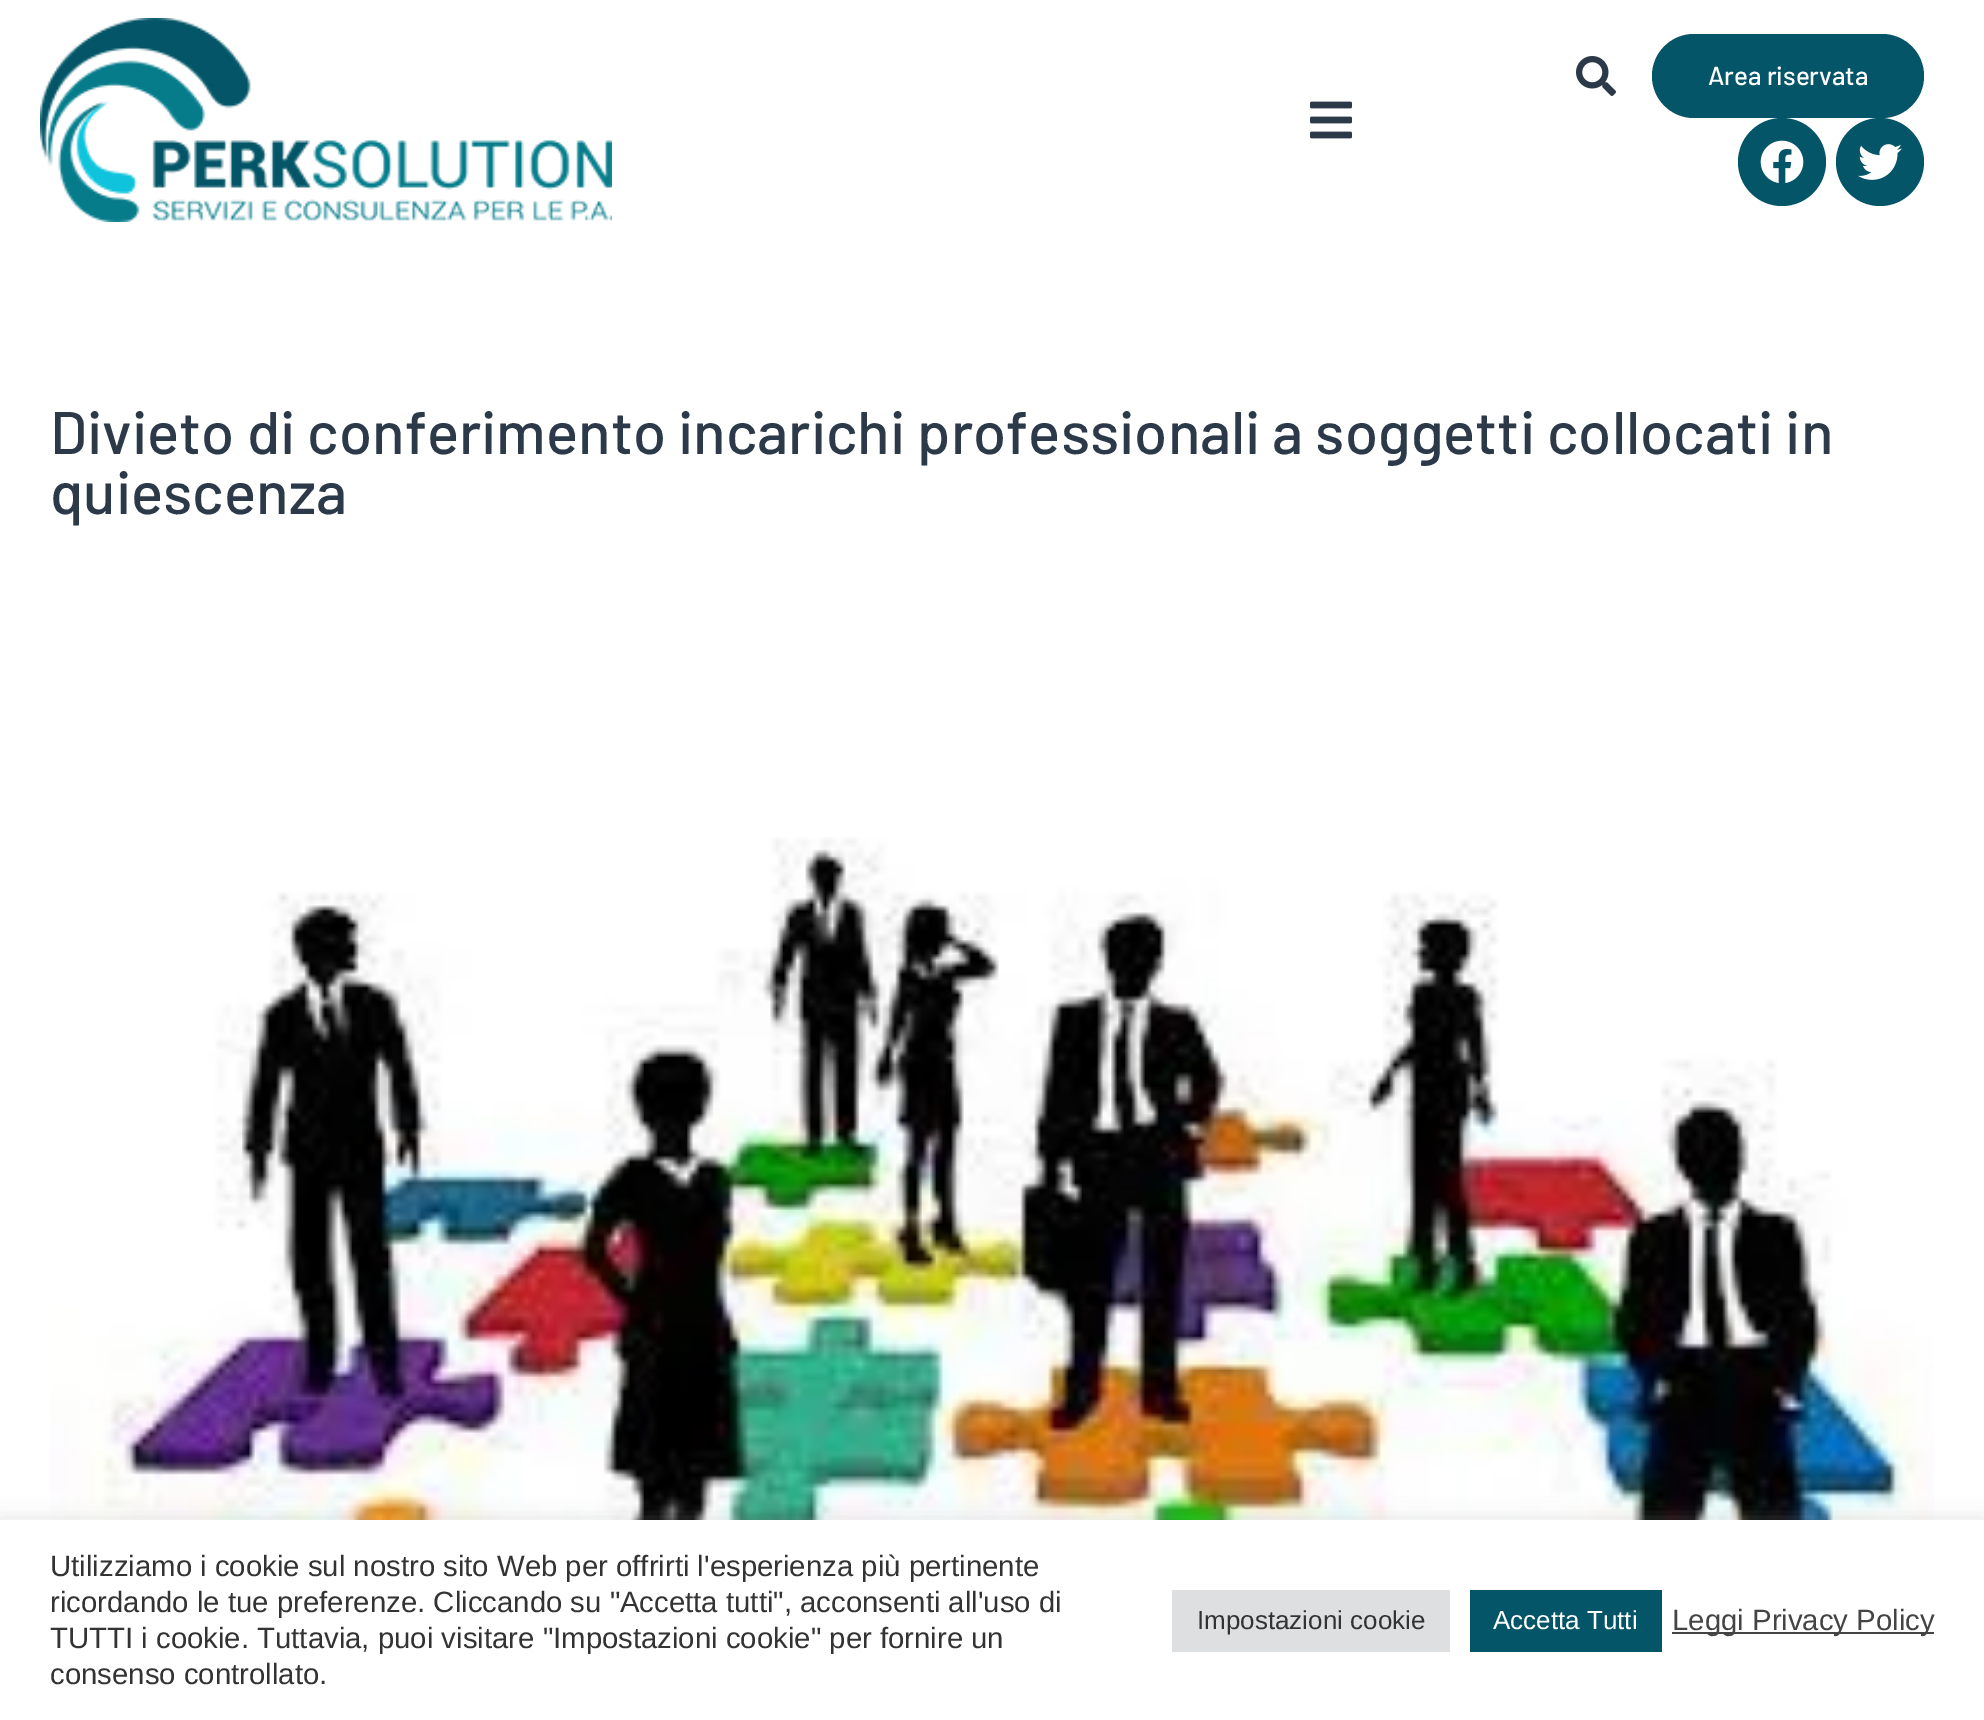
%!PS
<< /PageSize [1984 1720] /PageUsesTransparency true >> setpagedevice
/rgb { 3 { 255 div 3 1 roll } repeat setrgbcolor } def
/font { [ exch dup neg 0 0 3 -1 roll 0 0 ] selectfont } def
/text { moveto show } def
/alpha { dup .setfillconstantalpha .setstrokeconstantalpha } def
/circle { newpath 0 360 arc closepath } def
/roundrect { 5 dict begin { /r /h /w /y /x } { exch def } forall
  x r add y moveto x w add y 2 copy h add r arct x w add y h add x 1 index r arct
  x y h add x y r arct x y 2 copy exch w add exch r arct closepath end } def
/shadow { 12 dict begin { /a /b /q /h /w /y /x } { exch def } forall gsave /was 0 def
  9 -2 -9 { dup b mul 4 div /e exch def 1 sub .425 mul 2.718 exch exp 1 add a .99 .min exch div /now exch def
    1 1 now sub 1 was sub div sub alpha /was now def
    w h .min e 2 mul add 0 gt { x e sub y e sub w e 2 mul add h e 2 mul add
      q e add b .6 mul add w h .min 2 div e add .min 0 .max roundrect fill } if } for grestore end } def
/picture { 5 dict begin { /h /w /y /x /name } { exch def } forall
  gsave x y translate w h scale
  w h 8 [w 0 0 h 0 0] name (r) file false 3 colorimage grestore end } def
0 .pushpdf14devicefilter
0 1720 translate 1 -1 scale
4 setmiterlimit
255 255 255 rgb
0 0 1984 1720 rectfill
(img_01.rgb) 40 18 572 204 picture
(img_02.rgb) 1576 56 40 40 picture
3 85 103 rgb
1652 34 272 84 42 roundrect fill
1782 162 44 circle fill
(img_03.rgb) 1760 140 44 43 picture
1880 162 44 circle fill
(img_04.rgb) 1858 144 44 36 picture
(img_05.rgb) 1310 101 42 38 picture
(img_06.rgb) 50 837 1884 683 picture
172 171 171 rgb
0 1518 1984 200 0 10 0.3 shadow
255 255 255 rgb
0 1520 1984 200 rectfill
222 223 224 rgb
1172 1590 278 62 rectfill
3 85 103 rgb
1470 1590 192 62 rectfill
68 68 68 rgb
1672 1632 262 2 rectfill
/Barlow-Medium 26 font
255 255 255 rgb
(Area riservata) 1708 85 text
/Barlow-Medium 60 font
43 57 72 rgb
(Divieto di conferimento incarichi professionali a soggetti collocati in) 50 454 text
(quiescenza) 50 514 text
/LiberationSans-Regular 29.35 font
51 51 51 rgb
(Utilizziamo i cookie sul nostro sito Web per offrirti l'esperienza più pertinente) 50 1576 text
(ricordando le tue preferenze. Cliccando su "Accetta tutti", acconsenti all'uso di) 50 1612 text
(TUTTI i cookie. Tuttavia, puoi visitare "Impostazioni cookie" per fornire un) 50 1648 text
(consenso controllato.) 50 1684 text
/LiberationSans-Regular 26 font
(Impostazioni cookie) 1197 1629 text
255 255 255 rgb
(Accetta Tutti) 1493 1629 text
/LiberationSans-Regular 29.35 font
68 68 68 rgb
(Leggi Privacy Policy) 1672 1630 text
.poppdf14devicefilter showpage
